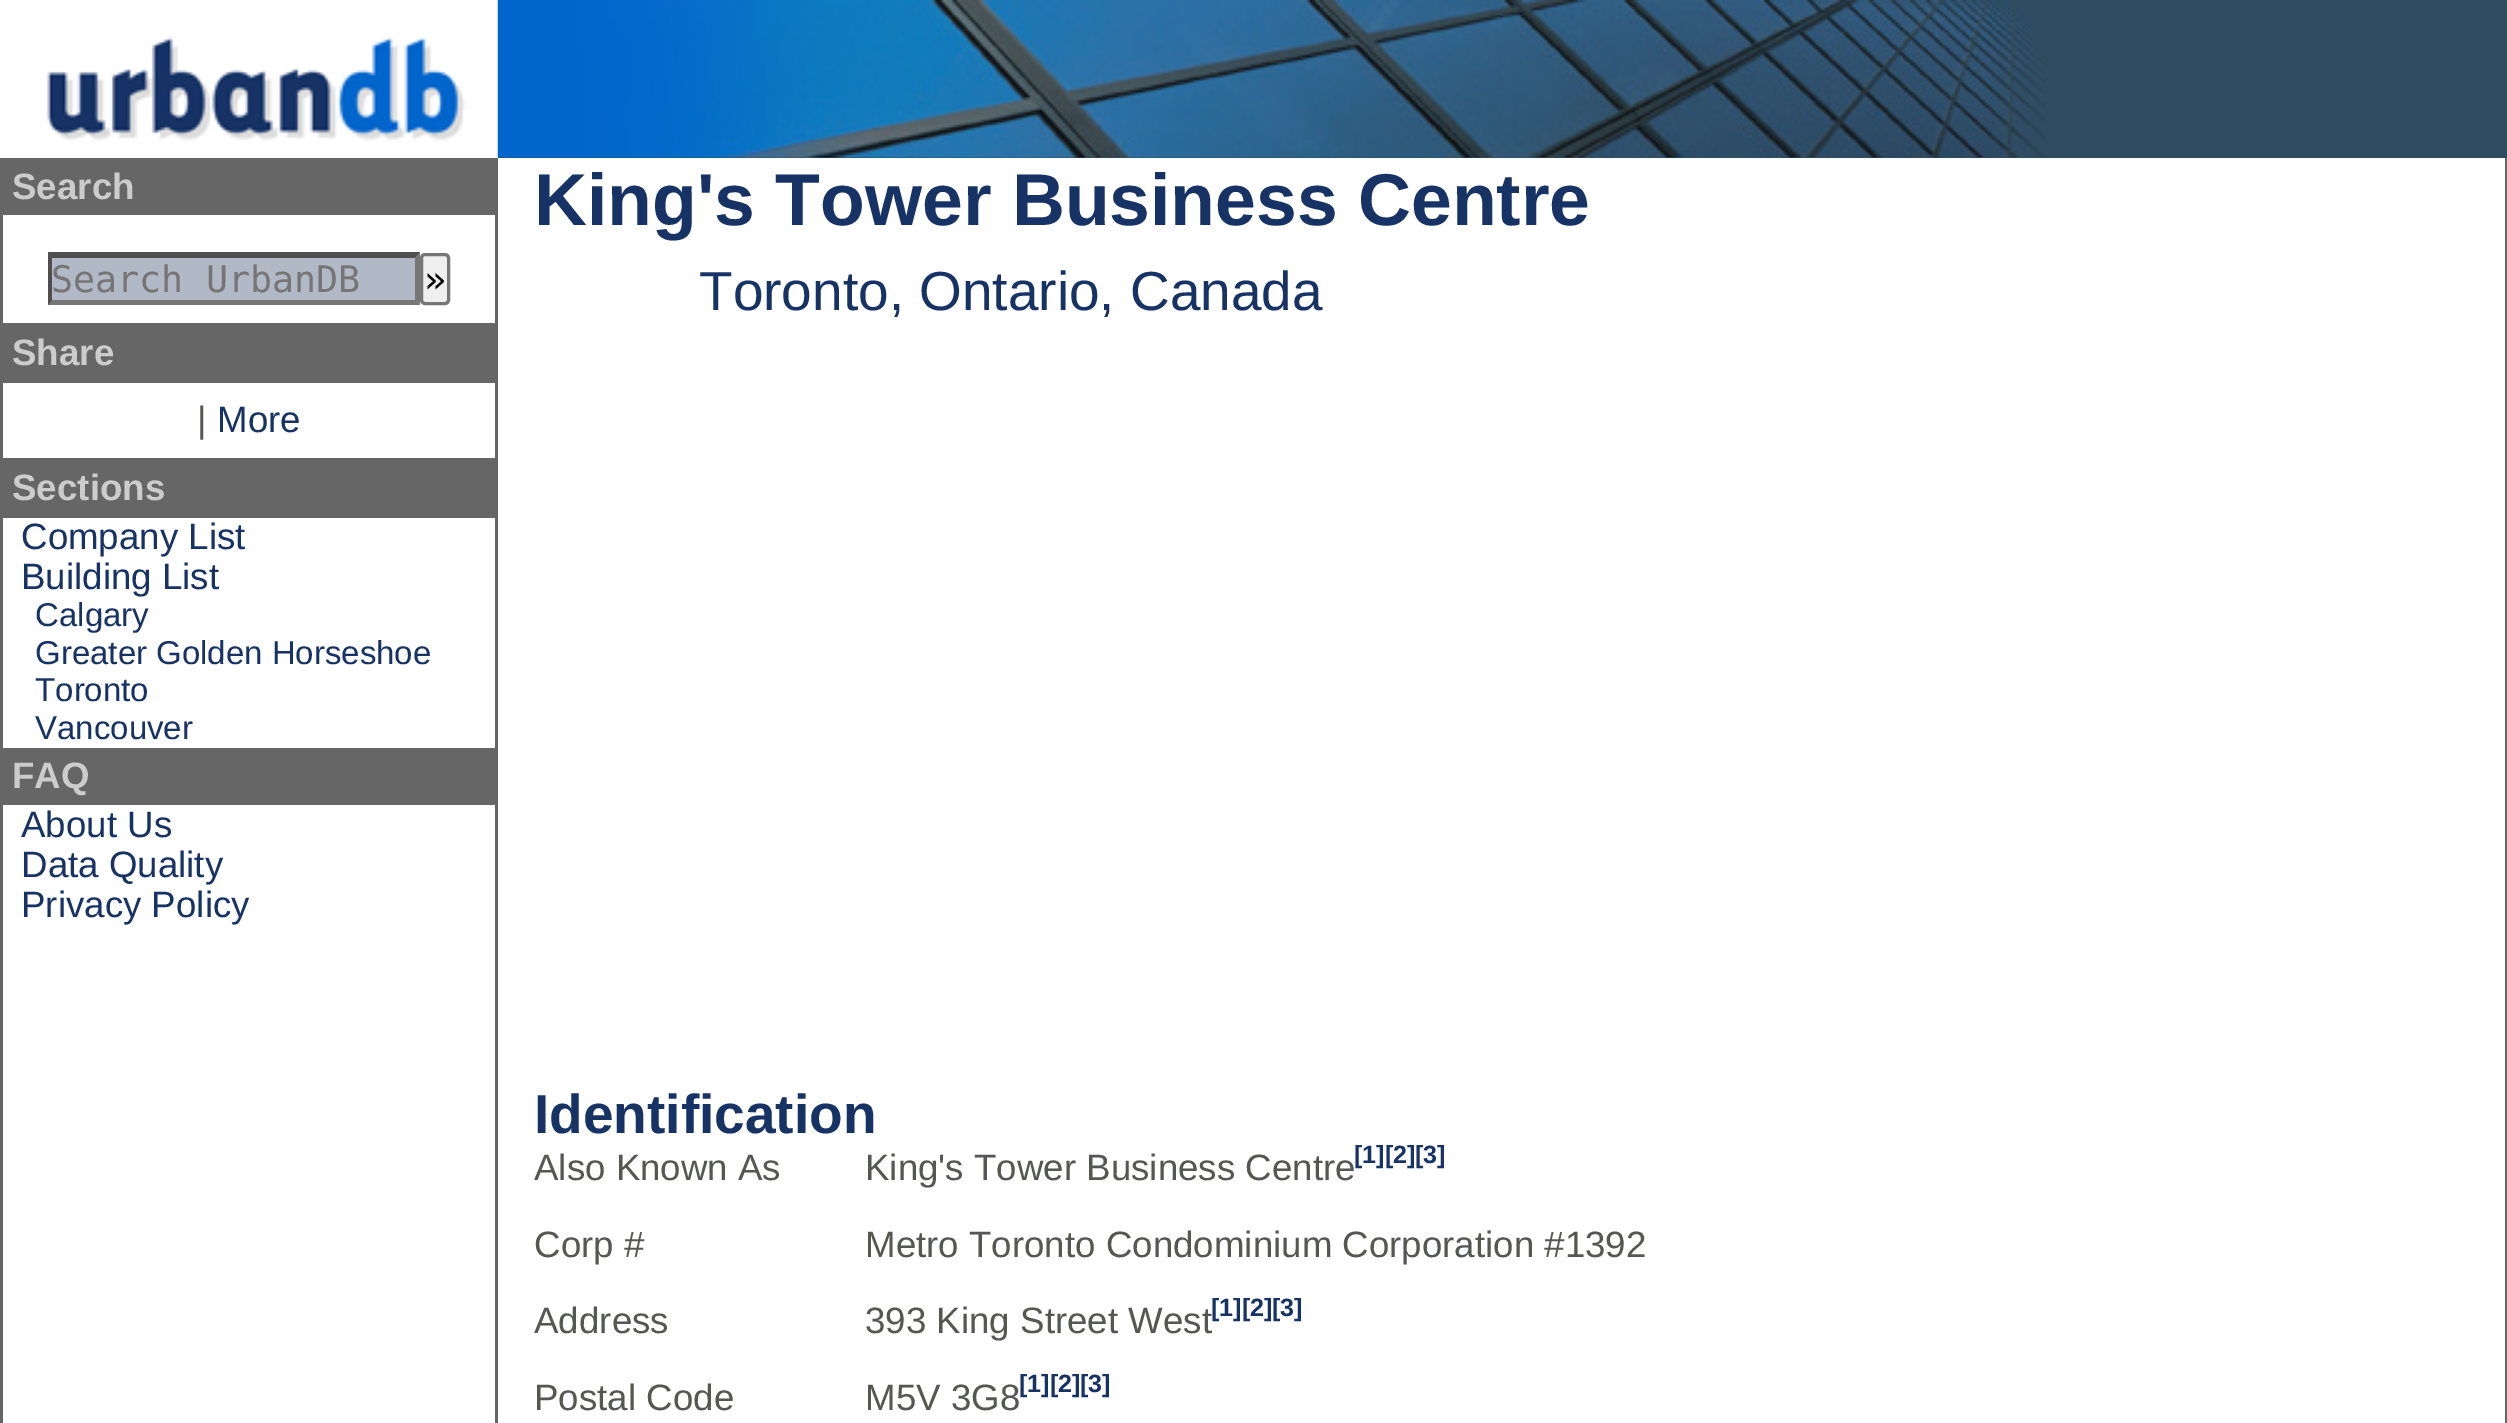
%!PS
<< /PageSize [2507 1423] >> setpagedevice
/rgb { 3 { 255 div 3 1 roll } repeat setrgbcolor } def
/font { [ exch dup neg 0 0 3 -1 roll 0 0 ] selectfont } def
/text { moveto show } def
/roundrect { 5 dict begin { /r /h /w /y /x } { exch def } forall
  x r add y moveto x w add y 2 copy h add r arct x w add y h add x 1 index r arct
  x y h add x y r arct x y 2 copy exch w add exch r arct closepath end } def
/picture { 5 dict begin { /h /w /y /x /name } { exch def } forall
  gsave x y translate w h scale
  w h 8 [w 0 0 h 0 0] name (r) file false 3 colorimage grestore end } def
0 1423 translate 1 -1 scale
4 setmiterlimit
255 255 255 rgb
0 0 2507 1423 rectfill
47 75 96 rgb
498 0 2009 158 rectfill
(img_02.rgb) 497 0 1548 158 picture
(img_01.rgb) 46 0 452 158 picture
102 102 102 rgb
495 158 3 1265 rectfill
0 158 3 1265 rectfill
3 158 492 57 rectfill
178 185 198 rgb
48 253 372 52 rectfill
79 79 79 rgb
48 252 moveto 372 0 rlineto -5 6 rlineto -363 0 rlineto closepath fill
118 118 118 rgb
420 252 moveto 0 53 rlineto -5 -5 rlineto 0 -42 rlineto closepath fill
420 305 moveto -372 0 rlineto 4 -5 rlineto 363 0 rlineto closepath fill
79 79 79 rgb
48 305 moveto 0 -53 rlineto 4 6 rlineto 0 42 rlineto closepath fill
239 239 239 rgb
421.5 254.5 27 49 3.5 roundrect gsave fill grestore
118 118 118 rgb
3 setlinewidth
stroke
102 102 102 rgb
3 323 492 60 rectfill
3 458 492 60 rectfill
3 748 492 57 rectfill
2505 158 2 1265 rectfill
/LiberationSans-Bold 36.7 font
204 204 204 rgb
(Search) 12 199 text
/DejaVuSansMono-Regular 36.7 font
117 117 117 rgb
(Search UrbanDB) 51 292 text
0 0 0 rgb
(») 424 292 text
/LiberationSans-Bold 36.7 font
204 204 204 rgb
(Share) 12 365 text
/LiberationSans-Regular 36.7 font
85 87 83 rgb
(|) 197 432 text
23 51 102 rgb
(More) 217 432 text
/LiberationSans-Bold 36.7 font
204 204 204 rgb
(Sections) 12 500 text
/LiberationSans-Regular 36.7 font
23 51 102 rgb
(Company List) 21 549 text
(Building List) 21 589 text
/LiberationSans-Regular 33 font
(Calgary) 35 626 text
(Greater Golden Horseshoe) 35 664 text
(Toronto) 35 701 text
(Vancouver) 35 739 text
/LiberationSans-Bold 36.7 font
204 204 204 rgb
(FAQ) 12 788 text
/LiberationSans-Regular 36.7 font
23 51 102 rgb
(About Us) 21 837 text
(Data Quality) 21 877 text
(Privacy Policy) 21 917 text
/LiberationSans-Bold 73.3 font
(King's Tower Business Centre) 534 225 text
/LiberationSans-Regular 55 font
(Toronto, Ontario, Canada) 699 310 text
/LiberationSans-Bold 55 font
(Identification) 534 1133 text
/LiberationSans-Regular 36.7 font
85 87 83 rgb
(Also Known As) 534 1180 text
(King's Tower Business Centre) 865 1180 text
/LiberationSans-Bold 25 font
23 51 102 rgb
([1][2][3]) 1354 1163 text
/LiberationSans-Regular 36.7 font
85 87 83 rgb
(Corp #) 534 1257 text
(Metro Toronto Condominium Corporation #1392) 865 1257 text
(Address) 534 1333 text
(393 King Street West) 865 1333 text
/LiberationSans-Bold 25 font
23 51 102 rgb
([1][2][3]) 1211 1316 text
/LiberationSans-Regular 36.7 font
85 87 83 rgb
(Postal Code) 534 1410 text
(M5V 3G8) 865 1410 text
/LiberationSans-Bold 25 font
23 51 102 rgb
([1][2][3]) 1019 1392 text
showpage
